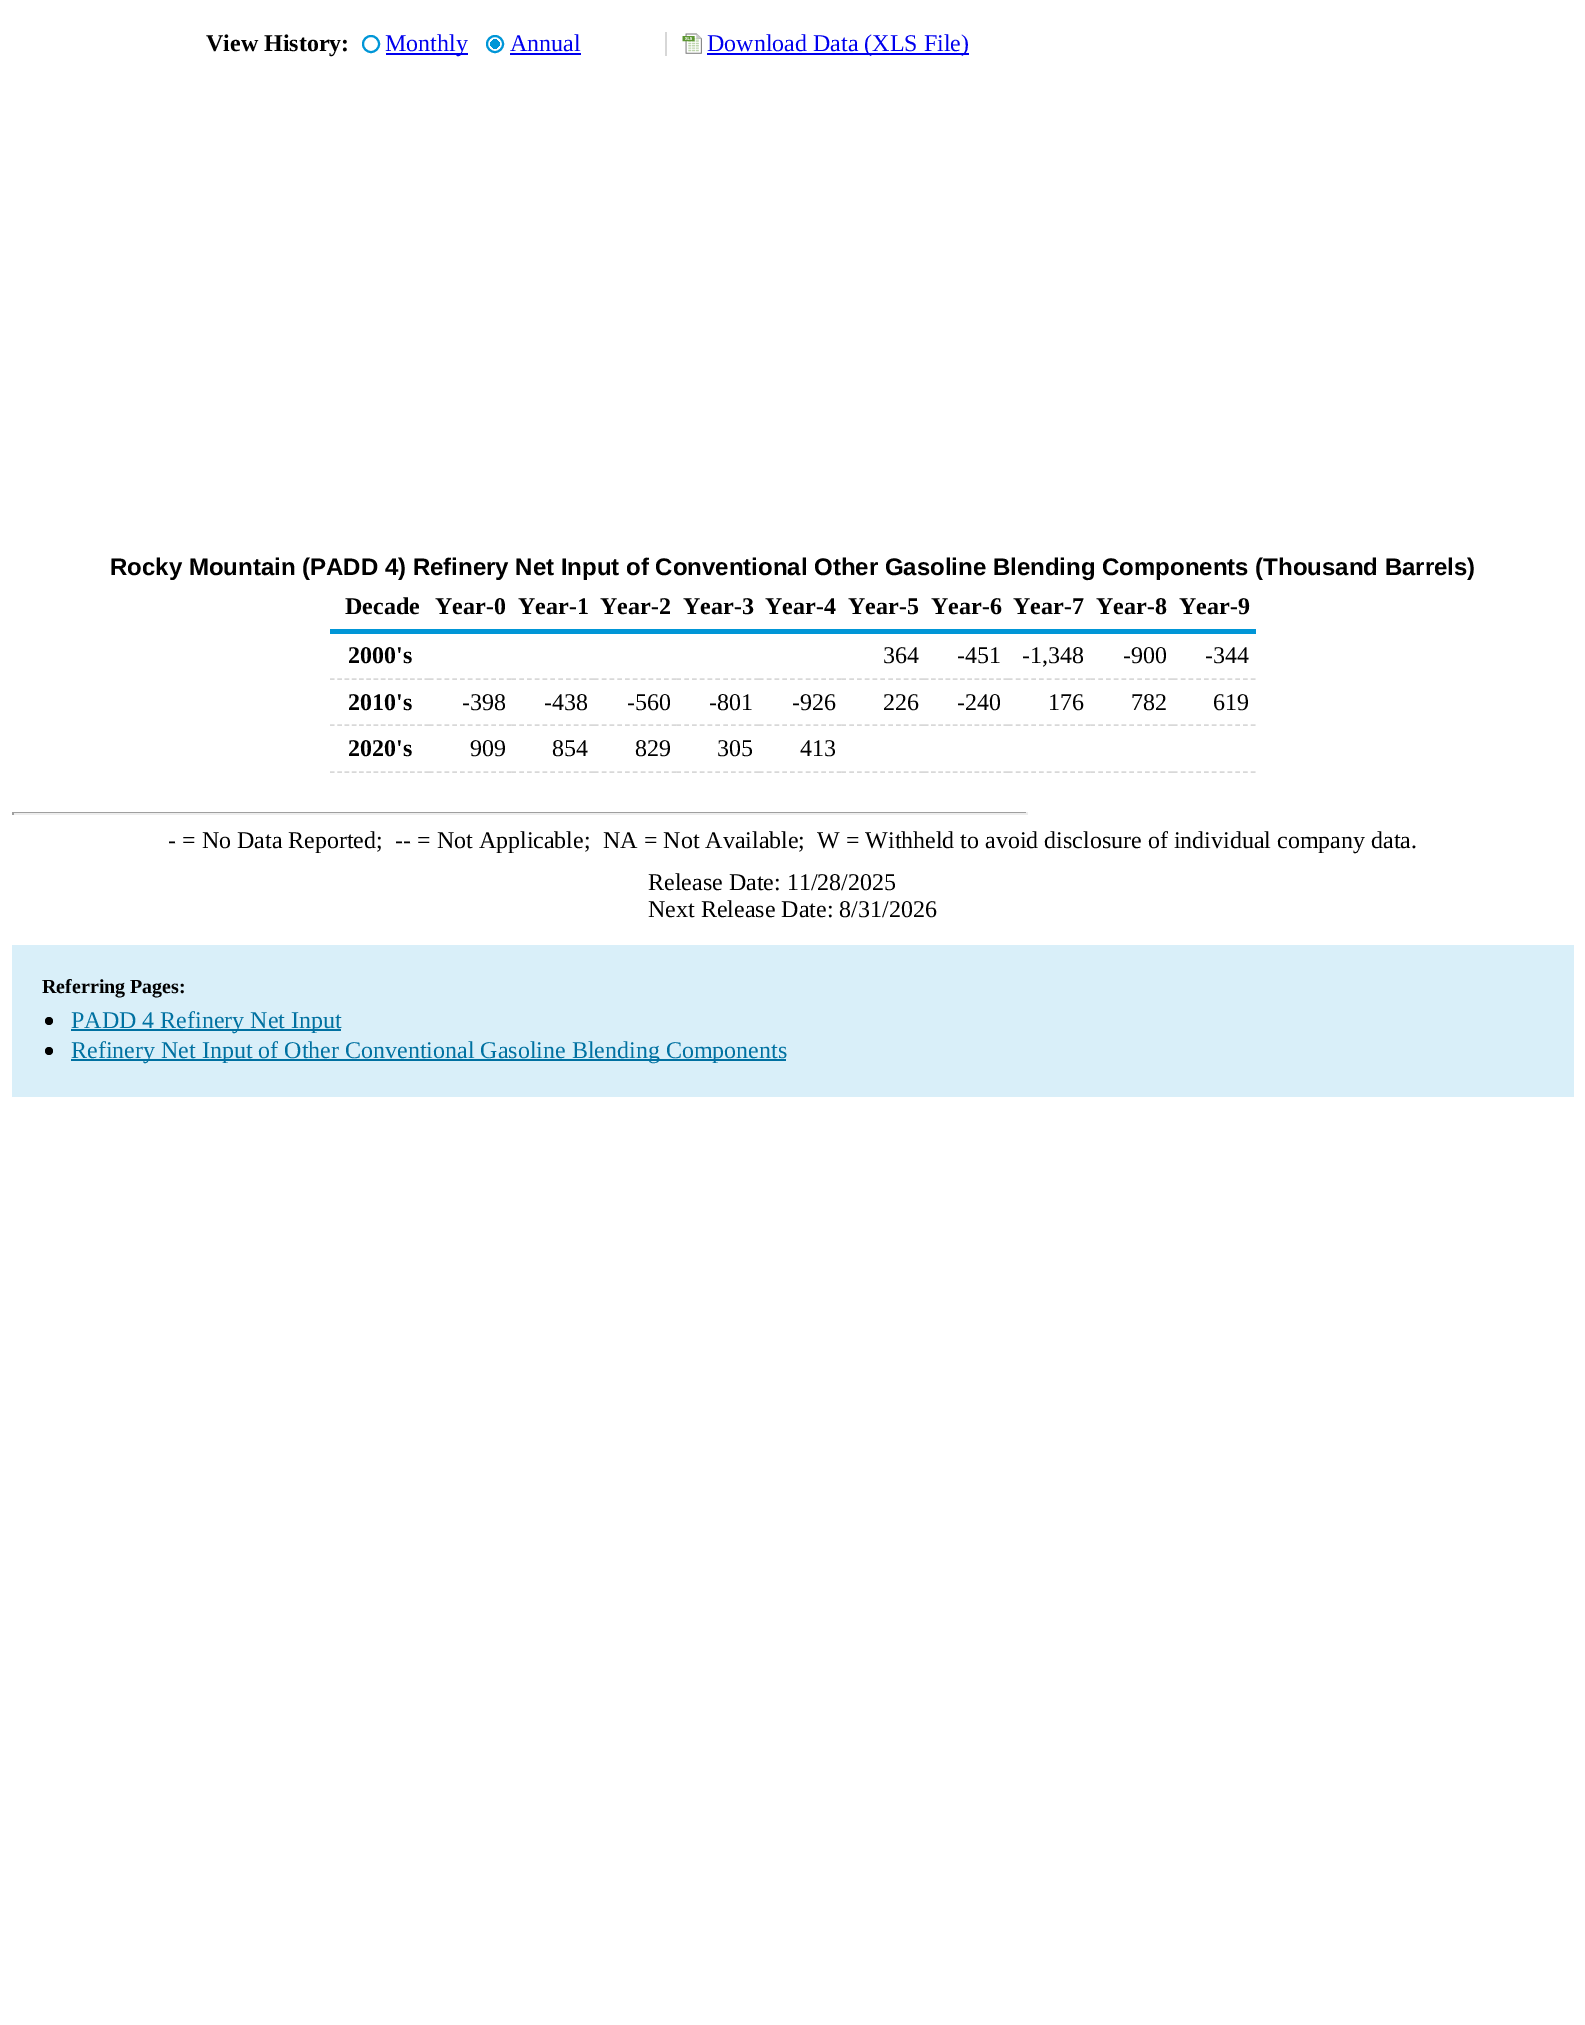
%!PS
<< /PageSize [1585 2025] >> setpagedevice
/rgb { 3 { 255 div 3 1 roll } repeat setrgbcolor } def
/font { [ exch dup neg 0 0 3 -1 roll 0 0 ] selectfont } def
/text { moveto show } def
/circle { newpath 0 360 arc closepath } def
/roundrect { 5 dict begin { /r /h /w /y /x } { exch def } forall
  x r add y moveto x w add y 2 copy h add r arct x w add y h add x 1 index r arct
  x y h add x y r arct x y 2 copy exch w add exch r arct closepath end } def
/picture { 5 dict begin { /h /w /y /x /name } { exch def } forall
  gsave x y translate w h scale
  w h 8 [w 0 0 h 0 0] name (r) file false 3 colorimage grestore end } def
0 2025 translate 1 -1 scale
4 setmiterlimit
255 255 255 rgb
0 0 1585 2025 rectfill
0 150 215 rgb
2 setlinewidth
371 44 8 circle stroke
0 0 238 rgb
386 53 82 2 rectfill
gsave
486 35 18 18 9 roundrect clip newpath
gsave 488 36 moveto 15 0 rlineto 0 15 rlineto -15 0 rlineto closepath clip newpath 495 44 translate 11 11 scale
<< /ShadingType 3 /ColorSpace /DeviceRGB /Coords [0 0 0 0 0 1] /Extend [true true] /Function << /FunctionType 3 /Domain [0 1] /Functions [<< /FunctionType 2 /Domain [0 1] /C0 [0 0.588 0.843] /C1 [0 0.588 0.843] /N 1 >> << /FunctionType 2 /Domain [0 1] /C0 [1 1 1] /C1 [1 1 1] /N 1 >>] /Bounds [0.45] /Encode [0 1 0 1] >> >> shfill grestore
grestore
0 150 215 rgb
495 44 8 circle stroke
0 0 238 rgb
510 53 71 2 rectfill
215 215 215 rgb
665 32 2 24 rectfill
(img_01.rgb) 682 33 20 21 picture
0 0 238 rgb
707 53 262 2 rectfill
0 150 215 rgb
330 629 926 5 rectfill
216 216 216 rgb
1.5 setlinewidth
[4.5 2.78] 0 setdash
330 679 moveto 99 0 rlineto stroke
[4.5 3.3] 0 setdash
759 679 moveto 82.5 0 rlineto stroke
841.5 679 moveto 82.5 0 rlineto stroke
[4.5 2.73] 0 setdash
924 679 moveto 84 0 rlineto stroke
[4.5 3.3] 0 setdash
1008 679 moveto 82.5 0 rlineto stroke
1090.5 679 moveto 82.5 0 rlineto stroke
1173 679 moveto 82.5 0 rlineto stroke
429 679 moveto 82.5 0 rlineto stroke
511.5 679 moveto 82.5 0 rlineto stroke
594 679 moveto 82.5 0 rlineto stroke
676.5 679 moveto 82.5 0 rlineto stroke
[4.5 2.78] 0 setdash
330 725 moveto 99 0 rlineto stroke
[4.5 3.3] 0 setdash
429 725 moveto 82.5 0 rlineto stroke
511.5 725 moveto 82.5 0 rlineto stroke
594 725 moveto 82.5 0 rlineto stroke
676.5 725 moveto 82.5 0 rlineto stroke
759 725 moveto 82.5 0 rlineto stroke
841.5 725 moveto 82.5 0 rlineto stroke
[4.5 2.73] 0 setdash
924 725 moveto 84 0 rlineto stroke
[4.5 3.3] 0 setdash
1008 725 moveto 82.5 0 rlineto stroke
1090.5 725 moveto 82.5 0 rlineto stroke
1173 725 moveto 82.5 0 rlineto stroke
[4.5 2.78] 0 setdash
330 772 moveto 99 0 rlineto stroke
[4.5 3.3] 0 setdash
429 772 moveto 82.5 0 rlineto stroke
511.5 772 moveto 82.5 0 rlineto stroke
594 772 moveto 82.5 0 rlineto stroke
676.5 772 moveto 82.5 0 rlineto stroke
759 772 moveto 82.5 0 rlineto stroke
841.5 772 moveto 82.5 0 rlineto stroke
[4.5 2.73] 0 setdash
924 772 moveto 84 0 rlineto stroke
[4.5 3.3] 0 setdash
1008 772 moveto 82.5 0 rlineto stroke
1090.5 772 moveto 82.5 0 rlineto stroke
1173 772 moveto 82.5 0 rlineto stroke
159 159 159 rgb
12 812 1016 1 rectfill
238 238 238 rgb
1026 812 2 3 rectfill
12 813 1016 2 rectfill
159 159 159 rgb
12 812 2 3 rectfill
217 239 249 rgb
12 945 1562 152 rectfill
0 0 0 rgb
49 1021 4 circle fill
0 113 161 rgb
71 1029 270 2 rectfill
0 0 0 rgb
49 1051 4 circle fill
0 113 161 rgb
71 1059 715 2 rectfill
/LiberationSerif-Bold 24 font
0 0 0 rgb
(View History:) 206 51 text
/LiberationSerif-Regular 24 font
0 0 238 rgb
(Monthly) 385 51 text
(Annual) 510 51 text
(Download Data \(XLS File\)) 707 51 text
/LiberationSans-Bold 24 font
0 0 0 rgb
(Rocky Mountain \(PADD 4\) Refinery Net Input of Conventional Other Gasoline Blending Components \(Thousand Barrels\)) 110 575 text
/LiberationSerif-Bold 24 font
(Decade) 345 614 text
(Year-0) 435 614 text
(Year-1) 518 614 text
(Year-2) 600 614 text
(Year-3) 683 614 text
(Year-4) 765 614 text
(Year-5) 848 614 text
(Year-6) 931 614 text
(Year-7) 1013 614 text
(Year-8) 1096 614 text
(Year-9) 1179 614 text
(2000's) 348 663 text
/LiberationSerif-Regular 24 font
(364) 883 663 text
(-451) 957 663 text
(-1,348) 1022 663 text
(-900) 1123 663 text
(-344) 1205 663 text
/LiberationSerif-Bold 24 font
(2010's) 348 710 text
/LiberationSerif-Regular 24 font
(-398) 462 710 text
(-438) 544 710 text
(-560) 627 710 text
(-801) 709 710 text
(-926) 792 710 text
(226) 883 710 text
(-240) 957 710 text
(176) 1048 710 text
(782) 1131 710 text
(619) 1213 710 text
/LiberationSerif-Bold 24 font
(2020's) 348 756 text
/LiberationSerif-Regular 24 font
(909) 470 756 text
(854) 552 756 text
(829) 635 756 text
(305) 717 756 text
(413) 800 756 text
(- = No Data Reported;) 168 848 text
(-- = Not Applicable;) 395 848 text
(NA = Not Available;) 603 848 text
(W = Withheld to avoid disclosure of individual company data.) 817 848 text
(Release Date: 11/28/2025) 648 890 text
(Next Release Date: 8/31/2026) 648 917 text
/LiberationSerif-Bold 20 font
(Referring Pages:) 42 993 text
/LiberationSerif-Regular 24 font
0 113 161 rgb
(PADD 4 Refinery Net Input) 71 1028 text
(Refinery Net Input of Other Conventional Gasoline Blending Components) 71 1058 text
showpage
